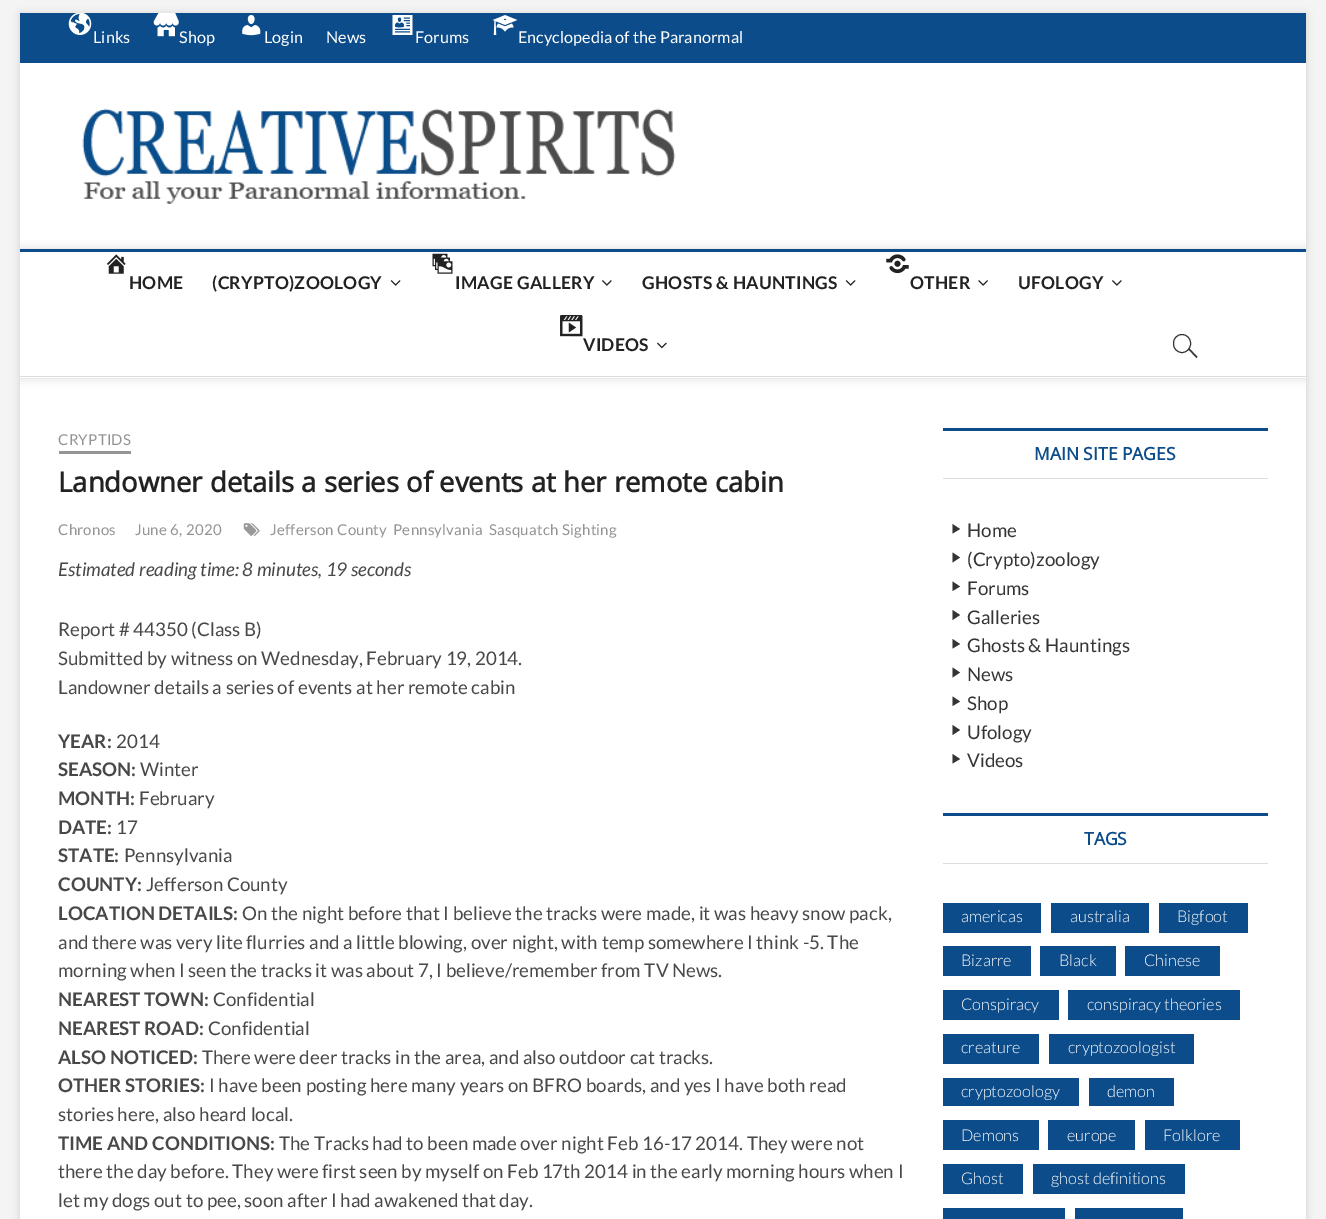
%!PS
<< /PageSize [1326 1219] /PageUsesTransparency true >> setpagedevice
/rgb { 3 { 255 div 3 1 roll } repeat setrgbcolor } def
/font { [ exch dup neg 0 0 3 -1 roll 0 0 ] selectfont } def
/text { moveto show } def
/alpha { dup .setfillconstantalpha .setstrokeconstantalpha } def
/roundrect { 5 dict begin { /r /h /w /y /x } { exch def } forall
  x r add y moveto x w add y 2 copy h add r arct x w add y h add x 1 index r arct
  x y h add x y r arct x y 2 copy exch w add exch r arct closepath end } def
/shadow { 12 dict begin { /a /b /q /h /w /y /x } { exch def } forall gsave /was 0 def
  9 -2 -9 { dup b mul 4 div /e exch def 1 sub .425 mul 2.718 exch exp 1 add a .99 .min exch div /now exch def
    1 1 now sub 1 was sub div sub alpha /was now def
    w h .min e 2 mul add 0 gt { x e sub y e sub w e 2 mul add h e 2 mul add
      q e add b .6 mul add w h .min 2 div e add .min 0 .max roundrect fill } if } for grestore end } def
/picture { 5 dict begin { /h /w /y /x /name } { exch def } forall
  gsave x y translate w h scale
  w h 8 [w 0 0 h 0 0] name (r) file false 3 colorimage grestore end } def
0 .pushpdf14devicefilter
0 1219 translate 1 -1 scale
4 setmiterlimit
244 244 244 rgb
0 0 1326 1219 rectfill
0 0 0 rgb
20 14 1286 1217 0 4 0.15 shadow
255 255 255 rgb
20 63 1286 1156 rectfill
12 76 138 rgb
20 13 1286 50 rectfill
(img_01.rgb) 68 13 24 22 picture
(img_02.rgb) 153 13 26 24 picture
(img_03.rgb) 242 15 19 21 picture
(img_04.rgb) 392 15 21 20 picture
(img_05.rgb) 492 15 26 20 picture
(img_06.rgb) 82 108 594 96 picture
gsave
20 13 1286 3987 rectclip
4 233 moveto 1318 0 rlineto 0 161 rlineto -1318 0 rlineto closepath 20 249 moveto 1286 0 rlineto 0 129 rlineto -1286 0 rlineto closepath eoclip newpath
0 0 0 rgb
20 249 1286 129 0 5 0.15 shadow
grestore
20 249 1286 3 rectfill
221 221 221 rgb
20 376 1286 1 rectfill
(img_07.rgb) 106 254 20 20 picture
(img_08.rgb) 390 280 11 6 picture
(img_09.rgb) 432 253 21 21 picture
(img_10.rgb) 602 280 10 6 picture
(img_08.rgb) 845 280 11 6 picture
(img_11.rgb) 886 254 23 20 picture
(img_12.rgb) 978 280 10 6 picture
(img_10.rgb) 1112 280 10 6 picture
(img_13.rgb) 560 315 23 22 picture
(img_14.rgb) 657 342 10 7 picture
51 51 51 rgb
1173.5 334.5 17 18 8.5 roundrect stroke
1188 349 moveto 1 -1 rlineto 8.5 9 rlineto -1 1 rlineto closepath fill
148 148 148 rgb
59 451 72 3 rectfill
(img_15.rgb) 243 523 17 13 picture
12 76 138 rgb
943 428 325 3 rectfill
221 221 221 rgb
943 478 325 1 rectfill
52 52 52 rgb
952.5 524 moveto 7.5 5 rlineto -7.5 4.5 rlineto closepath fill
952.5 552.5 moveto 7.5 5 rlineto -7.5 5 rlineto closepath fill
952.5 581.5 moveto 7.5 5 rlineto -7.5 4.5 rlineto closepath fill
952.5 610 moveto 7.5 5 rlineto -7.5 5 rlineto closepath fill
952.5 639 moveto 7.5 5 rlineto -7.5 4.5 rlineto closepath fill
952.5 667.5 moveto 7.5 5 rlineto -7.5 5 rlineto closepath fill
952.5 696.5 moveto 7.5 5 rlineto -7.5 4.5 rlineto closepath fill
952.5 725 moveto 7.5 5 rlineto -7.5 5 rlineto closepath fill
952.5 754 moveto 7.5 5 rlineto -7.5 4.5 rlineto closepath fill
12 76 138 rgb
943 813 325 3 rectfill
221 221 221 rgb
943 863 325 1 rectfill
12 76 138 rgb
943 903 98 30 rectfill
1051 903 98 30 rectfill
1159 903 89 30 rectfill
943 946 88 30 rectfill
1040 946 76 30 rectfill
1125 946 95 30 rectfill
943 990 116 30 rectfill
1068 990 172 30 rectfill
943 1034 96 30 rectfill
1049 1034 145 30 rectfill
943 1078 136 28 rectfill
1089 1078 85 28 rectfill
943 1120 96 30 rectfill
1048 1120 87 30 rectfill
1145 1120 95 30 rectfill
943 1164 80 30 rectfill
1033 1164 152 30 rectfill
943 1208 122 11 rectfill
1075 1208 108 11 rectfill
/Lato-Regular 16.25 font
255 255 255 rgb
(Links) 93 43 text
(Shop) 179 43 text
(Login) 264 43 text
(News) 326 43 text
(Forums) 415 43 text
(Encyclopedia of the Paranormal) 518 43 text
/Lato-Bold 17.5 font
34 34 34 rgb
129 289 moveto 0.25 0 (HOME) ashow
212 289 moveto 0.25 0 (\(CRYPTO\)ZOOLOGY) ashow
455 289 moveto 0.25 0 (IMAGE GALLERY) ashow
642 289 moveto 0.25 0 (GHOSTS & HAUNTINGS) ashow
910 289 moveto 0.25 0 (OTHER) ashow
1018 289 moveto 0.25 0 (UFOLOGY) ashow
583 351 moveto 0.25 0 (VIDEOS) ashow
/Lato-Regular 15 font
148 148 148 rgb
58 445 moveto 0.25 0 (CRYPTIDS) ashow
/OpenSans-Bold 27.5 font
34 34 34 rgb
(Landowner details a series of events at her remote cabin) 58 492 text
/Lato-Regular 15 font
148 148 148 rgb
58 535 moveto 0.25 0 (Chronos) ashow
135 535 moveto 0.25 0 (June 6, 2020) ashow
270 535 moveto 0.25 0 (Jefferson County) ashow
393 535 moveto 0.25 0 (Pennsylvania) ashow
489 535 moveto 0.25 0 (Sasquatch Sighting) ashow
/Lato-Italic 18.75 font
72 72 72 rgb
(Estimated reading time: 8 minutes, 19 seconds) 58 576 text
/Lato-Regular 18.75 font
(Report # 44350 \(Class B\)) 58 636 text
(Submitted by witness on Wednesday, February 19, 2014.) 58 665 text
(Landowner details a series of events at her remote cabin) 58 694 text
/Lato-Bold 18.75 font
(YEAR:) 58 748 text
/Lato-Regular 18.75 font
(2014) 116 748 text
/Lato-Bold 18.75 font
(SEASON:) 58 776 text
/Lato-Regular 18.75 font
(Winter) 140 776 text
/Lato-Bold 18.75 font
(MONTH:) 58 805 text
/Lato-Regular 18.75 font
(February) 139 805 text
/Lato-Bold 18.75 font
(DATE:) 58 834 text
/Lato-Regular 18.75 font
(17) 116 834 text
/Lato-Bold 18.75 font
(STATE:) 58 862 text
/Lato-Regular 18.75 font
(Pennsylvania) 124 862 text
/Lato-Bold 18.75 font
(COUNTY:) 58 891 text
/Lato-Regular 18.75 font
(Jefferson County) 146 891 text
/Lato-Bold 18.75 font
(LOCATION DETAILS:) 58 920 text
/Lato-Regular 18.75 font
(On the night before that I believe the tracks were made, it was heavy snow pack,) 242 920 text
(and there was very lite flurries and a little blowing, over night, with temp somewhere I think -5. The) 58 949 text
(morning when I seen the tracks it was about 7, I believe/remember from TV News.) 58 977 text
/Lato-Bold 18.75 font
(NEAREST TOWN:) 58 1006 text
/Lato-Regular 18.75 font
(Confidential) 213 1006 text
/Lato-Bold 18.75 font
(NEAREST ROAD:) 58 1035 text
/Lato-Regular 18.75 font
(Confidential) 208 1035 text
/Lato-Bold 18.75 font
(ALSO NOTICED:) 58 1064 text
/Lato-Regular 18.75 font
(There were deer tracks in the area, and also outdoor cat tracks.) 202 1064 text
/Lato-Bold 18.75 font
(OTHER STORIES:) 58 1092 text
/Lato-Regular 18.75 font
(I have been posting here many years on BFRO boards, and yes I have both read) 209 1092 text
(stories here, also heard local.) 58 1121 text
/Lato-Bold 18.75 font
(TIME AND CONDITIONS:) 58 1150 text
/Lato-Regular 18.75 font
(The Tracks had to been made over night Feb 16-17 2014. They were not) 279 1150 text
(there the day before. They were first seen by myself on Feb 17th 2014 in the early morning hours when I) 58 1178 text
(let my dogs out to pee, soon after I had awakened that day.) 58 1207 text
/OpenSans-Bold 17.5 font
12 76 138 rgb
(MAIN SITE PAGES) 1034 460 text
/Lato-Regular 18.75 font
52 52 52 rgb
(Home) 967 537 text
(\(Crypto\)zoology) 967 566 text
(Forums) 967 595 text
(Galleries) 967 624 text
(Ghosts & Hauntings) 967 652 text
(News) 967 681 text
(Shop) 967 710 text
(Ufology) 967 739 text
(Videos) 967 767 text
/OpenSans-Bold 17.5 font
12 76 138 rgb
(TAGS) 1084 845 text
/Lato-Light 16.25 font
255 255 255 rgb
(americas) 961 922 text
(australia) 1070 922 text
(Bigfoot) 1177 922 text
(Bizarre) 961 966 text
(Black) 1059 966 text
(Chinese) 1144 966 text
(Conspiracy) 961 1010 text
(conspiracy theories) 1087 1010 text
(creature) 961 1053 text
(cryptozoologist) 1068 1053 text
(cryptozoology) 961 1097 text
(demon) 1107 1097 text
(Demons) 961 1141 text
(europe) 1067 1141 text
(Folklore) 1163 1141 text
(Ghost) 961 1184 text
(ghost definitions) 1051 1184 text
.poppdf14devicefilter showpage
